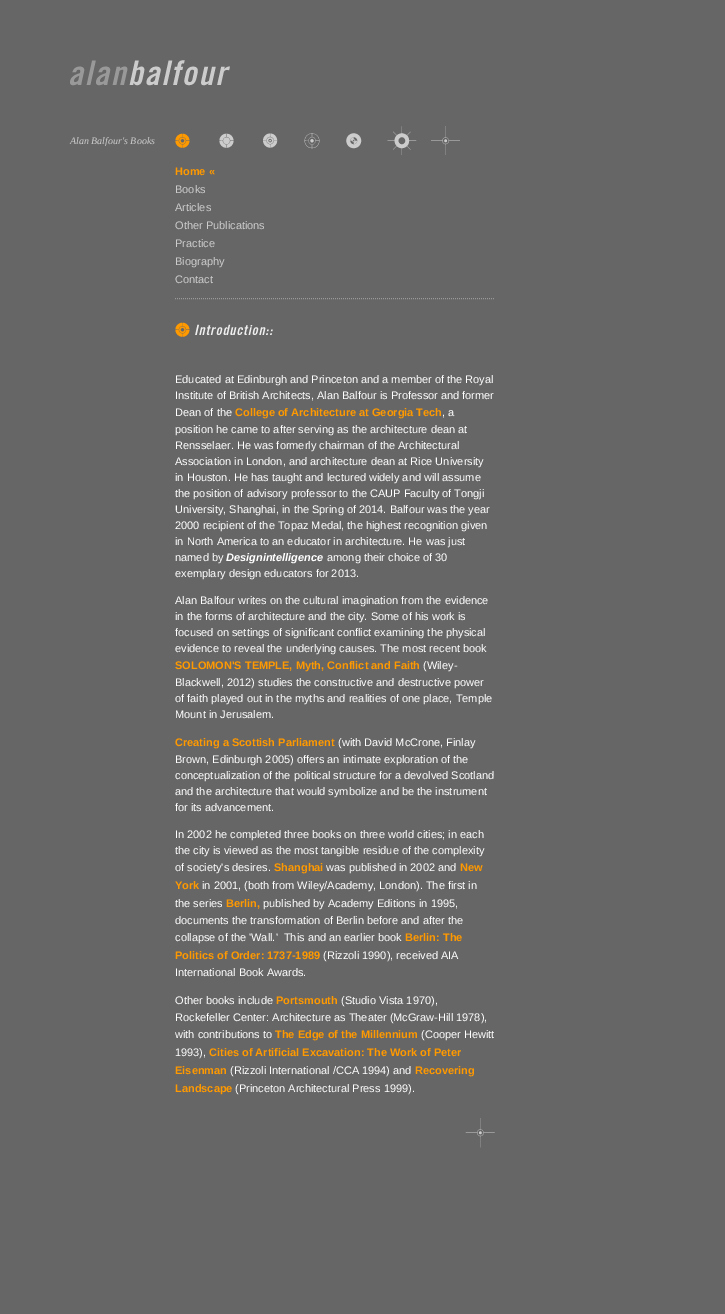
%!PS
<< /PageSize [725 1314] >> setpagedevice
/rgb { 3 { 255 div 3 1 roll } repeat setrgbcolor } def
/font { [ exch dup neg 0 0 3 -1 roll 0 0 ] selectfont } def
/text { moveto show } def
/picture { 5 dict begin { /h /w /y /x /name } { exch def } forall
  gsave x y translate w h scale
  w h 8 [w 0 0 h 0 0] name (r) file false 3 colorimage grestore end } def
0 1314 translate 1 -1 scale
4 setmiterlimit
102 102 102 rgb
0 0 725 1314 rectfill
(img_01.rgb) 70 60 160 26 picture
(img_02.rgb) 175 133 15 15 picture
(img_03.rgb) 219 133 15 15 picture
(img_04.rgb) 263 133 15 15 picture
(img_05.rgb) 304 133 16 16 picture
(img_06.rgb) 346 133 16 16 picture
(img_07.rgb) 387 126 30 29 picture
(img_08.rgb) 431 126 29 29 picture
153 153 153 rgb
[1 1] 0 setdash
175 298.5 moveto 320 0 rlineto stroke
(img_09.rgb) 175 322 98 15 picture
(img_10.rgb) 465 1118 30 30 picture
/LiberationSerif-Italic 10 font
204 204 204 rgb
(Alan Balfour's Books) 70 144 text
/LiberationSans-Bold 11 font
255 153 0 rgb
(Home «) 175 175 text
/LiberationSans-Regular 11 font
204 204 204 rgb
(Books) 175 193 text
(Articles) 175 211 text
(Other Publications) 175 229 text
(Practice) 175 247 text
(Biography) 175 265 text
(Contact) 175 283 text
255 255 255 rgb
(Educated at Edinburgh and Princeton and a member of the Royal) 175 383 text
(Institute of British Architects, Alan Balfour is Professor and former) 175 399 text
(Dean of the) 175 416 text
/LiberationSans-Bold 11 font
255 153 0 rgb
(College of Architecture at Georgia Tech) 235 416 text
/LiberationSans-Regular 11 font
255 255 255 rgb
(, a) 442 416 text
(position he came to after serving as the architecture dean at) 175 433 text
(Rensselaer. He was formerly chairman of the Architectural) 175 449 text
(Association in London, and architecture dean at Rice University) 175 465 text
(in Houston. He has taught and lectured widely and will assume) 175 481 text
(the position of advisory professor to the CAUP Faculty of Tongji) 175 497 text
(University, Shanghai, in the Spring of 2014. Balfour was the year) 175 513 text
(2000 recipient of the Topaz Medal, the highest recognition given) 175 529 text
(in North America to an educator in architecture. He was just) 175 545 text
(named by) 175 561 text
/LiberationSans-BoldItalic 11 font
(Designintelligence) 226 561 text
/LiberationSans-Regular 11 font
(among their choice of 30) 327 561 text
(exemplary design educators for 2013.) 175 577 text
(Alan Balfour writes on the cultural imagination from the evidence) 175 604 text
(in the forms of architecture and the city. Some of his work is) 175 620 text
(focused on settings of significant conflict examining the physical) 175 636 text
(evidence to reveal the underlying causes. The most recent book) 175 652 text
/LiberationSans-Bold 11 font
255 153 0 rgb
(SOLOMON'S TEMPLE, Myth, Conflict and Faith) 175 669 text
/LiberationSans-Regular 11 font
255 255 255 rgb
(\(Wiley-) 423 669 text
(Blackwell, 2012\) studies the constructive and destructive power) 175 686 text
(of faith played out in the myths and realities of one place, Temple) 175 702 text
(Mount in Jerusalem.) 175 718 text
/LiberationSans-Bold 11 font
255 153 0 rgb
(Creating a Scottish Parliament) 175 746 text
/LiberationSans-Regular 11 font
255 255 255 rgb
(\(with David McCrone, Finlay) 338 746 text
(Brown, Edinburgh 2005\) offers an intimate exploration of the) 175 763 text
(conceptualization of the political structure for a devolved Scotland) 175 779 text
(and the architecture that would symbolize and be the instrument) 175 795 text
(for its advancement.) 175 811 text
(In 2002 he completed three books on three world cities; in each) 175 838 text
(the city is viewed as the most tangible residue of the complexity) 175 854 text
(of society's desires.) 175 871 text
/LiberationSans-Bold 11 font
255 153 0 rgb
(Shanghai) 274 871 text
/LiberationSans-Regular 11 font
255 255 255 rgb
(was published in 2002 and) 326 871 text
/LiberationSans-Bold 11 font
255 153 0 rgb
(New) 460 871 text
(York) 175 889 text
/LiberationSans-Regular 11 font
255 255 255 rgb
(in 2001, \(both from Wiley/Academy, London\). The first in) 202 889 text
(the series) 175 907 text
/LiberationSans-Bold 11 font
255 153 0 rgb
(Berlin,) 226 907 text
/LiberationSans-Regular 11 font
255 255 255 rgb
(published by Academy Editions in 1995,) 263 907 text
(documents the transformation of Berlin before and after the) 175 924 text
(collapse of the 'Wall.'  This and an earlier book) 175 941 text
/LiberationSans-Bold 11 font
255 153 0 rgb
(Berlin: The) 405 941 text
(Politics of Order: 1737-1989) 175 959 text
/LiberationSans-Regular 11 font
255 255 255 rgb
(\(Rizzoli 1990\), received AIA) 323 959 text
(International Book Awards.) 175 976 text
(Other books include) 175 1004 text
/LiberationSans-Bold 11 font
255 153 0 rgb
(Portsmouth) 276 1004 text
/LiberationSans-Regular 11 font
255 255 255 rgb
(\(Studio Vista 1970\),) 341 1004 text
(Rockefeller Center: Architecture as Theater \(McGraw-Hill 1978\),) 175 1021 text
(with contributions to) 175 1038 text
/LiberationSans-Bold 11 font
255 153 0 rgb
(The Edge of the Millennium) 275 1038 text
/LiberationSans-Regular 11 font
255 255 255 rgb
(\(Cooper Hewitt) 421 1038 text
(1993\),) 175 1056 text
/LiberationSans-Bold 11 font
255 153 0 rgb
(Cities of Artificial Excavation: The Work of Peter) 209 1056 text
(Eisenman) 175 1074 text
/LiberationSans-Regular 11 font
255 255 255 rgb
(\(Rizzoli International /CCA 1994\) and) 230 1074 text
/LiberationSans-Bold 11 font
255 153 0 rgb
(Recovering) 415 1074 text
(Landscape) 175 1092 text
/LiberationSans-Regular 11 font
255 255 255 rgb
(\(Princeton Architectural Press 1999\).) 235 1092 text
showpage
